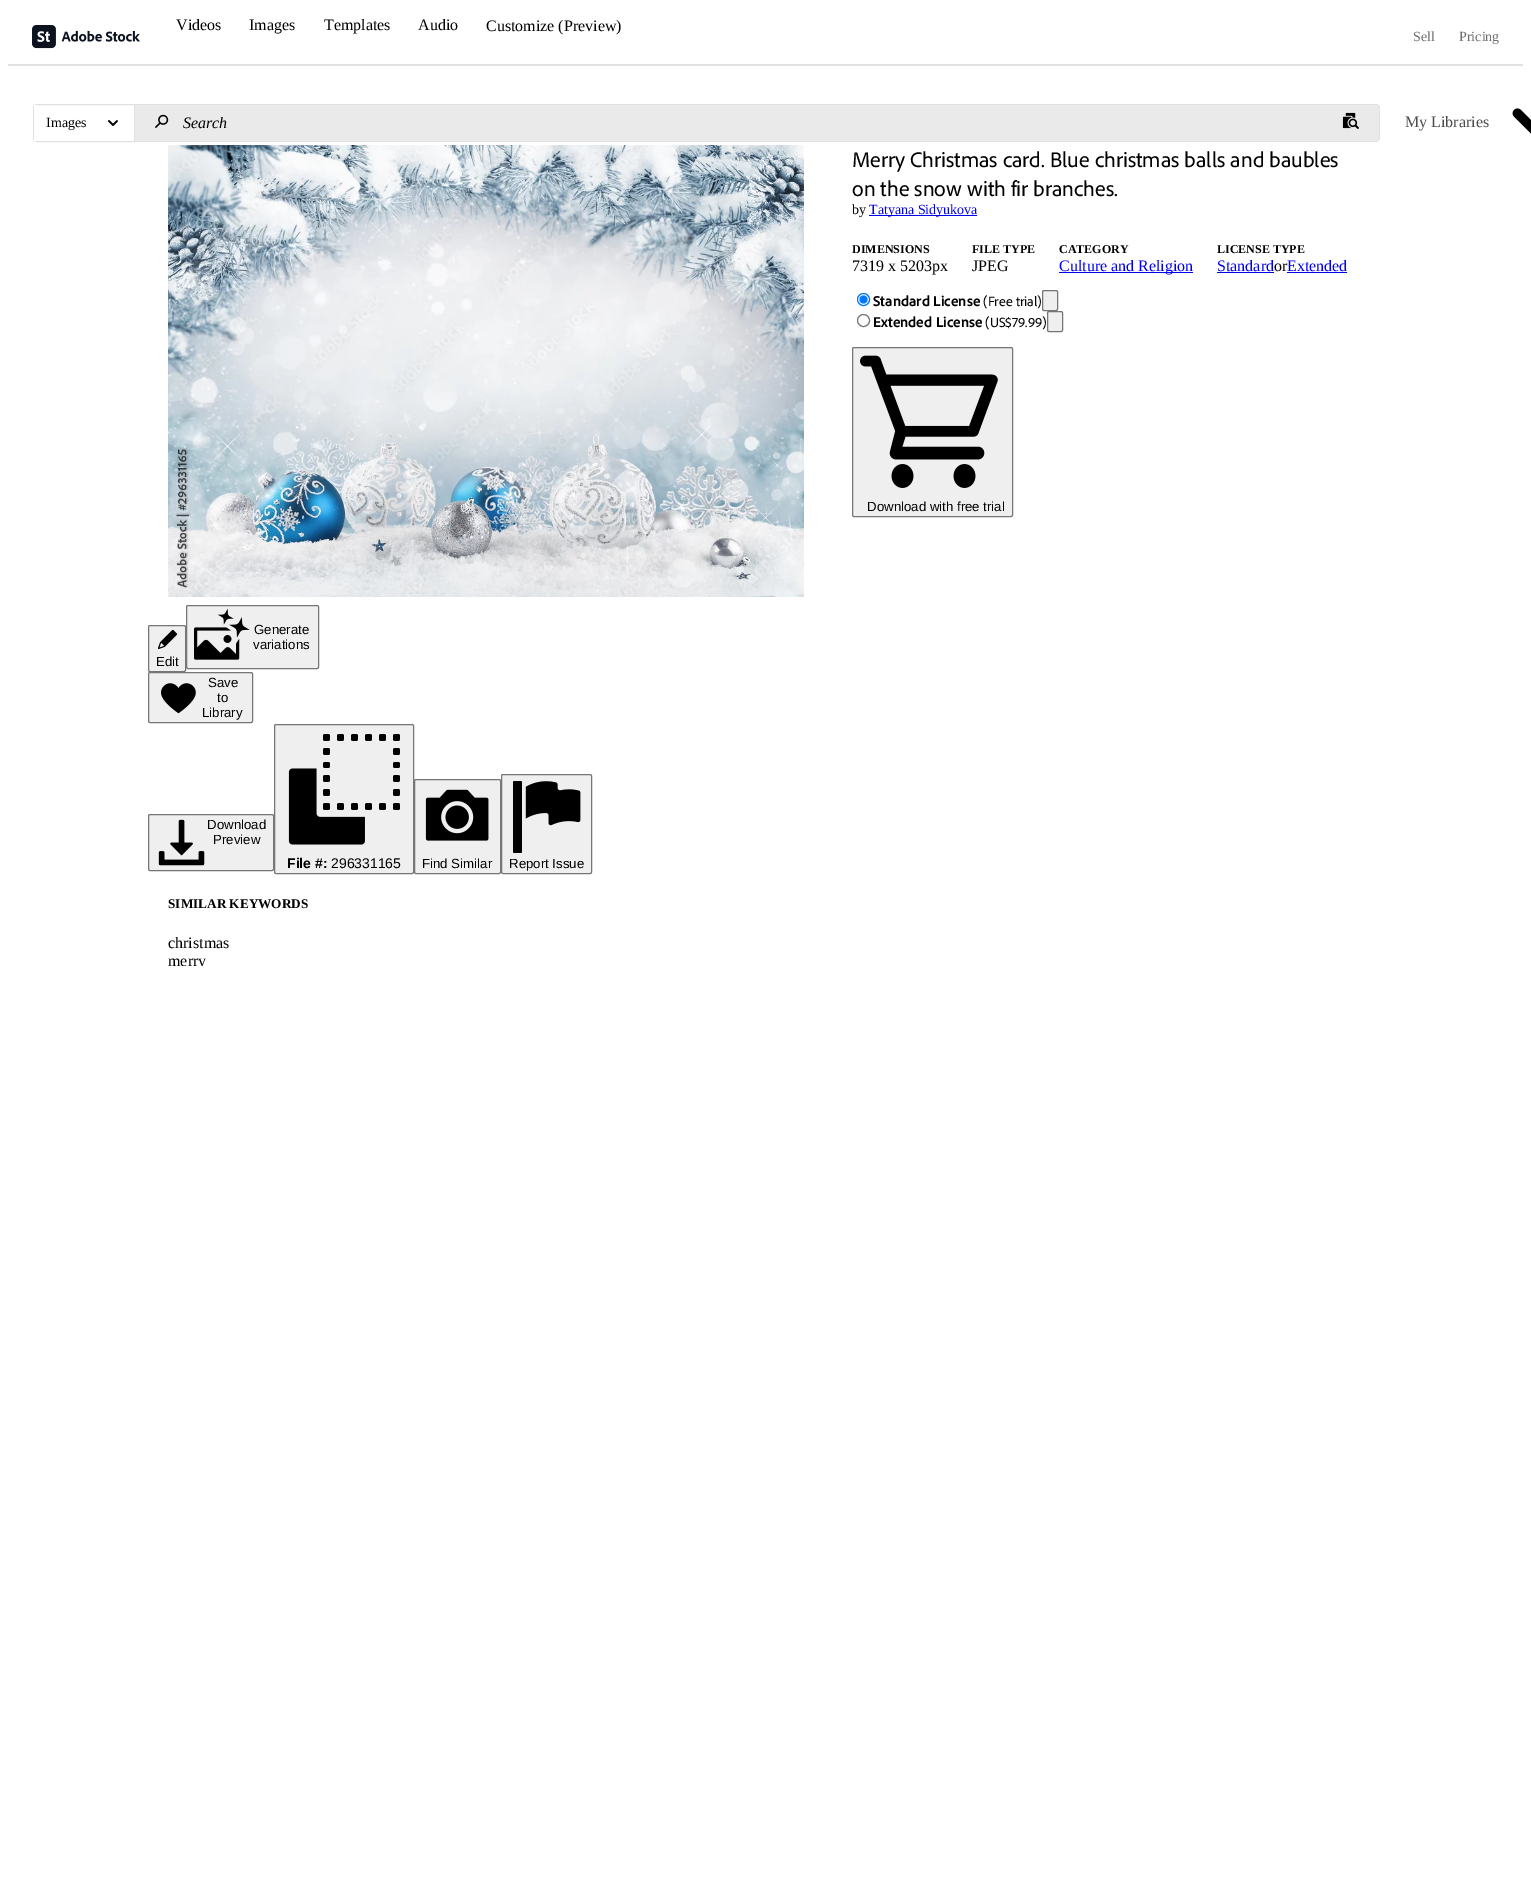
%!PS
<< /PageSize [1531 1891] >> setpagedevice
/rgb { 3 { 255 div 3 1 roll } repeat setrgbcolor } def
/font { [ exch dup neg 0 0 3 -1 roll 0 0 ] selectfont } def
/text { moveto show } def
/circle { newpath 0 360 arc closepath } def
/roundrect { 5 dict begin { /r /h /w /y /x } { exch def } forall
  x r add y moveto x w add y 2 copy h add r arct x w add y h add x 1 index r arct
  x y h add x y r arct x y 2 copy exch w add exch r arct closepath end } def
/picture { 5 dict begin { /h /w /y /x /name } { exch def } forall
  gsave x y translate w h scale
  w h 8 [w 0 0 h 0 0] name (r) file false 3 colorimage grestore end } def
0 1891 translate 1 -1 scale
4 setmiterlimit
255 255 255 rgb
0 0 1531 1891 rectfill
225 225 225 rgb
8 64 1515 2 rectfill
(img_01.rgb) 32 25 108 24 picture
37 104.5 moveto 97.5 0 rlineto 0 37 rlineto -97.5 0 rlineto -2 0 -3.5 -1.5 -3.5 -3.5 rcurveto 0 -30 rlineto 0 -2 1.5 -3.5 3.5 -3.5 rcurveto closepath stroke
255 255 255 rgb
34 105 3 36 rectfill
(img_02.rgb) 108 120 10 6 picture
234 234 234 rgb
135 105 moveto 1241 0 rlineto 1.5 0 3 1.5 3 3 rcurveto 0 30 rlineto 0 1.5 -1.5 3 -3 3 rcurveto -1241 0 rlineto closepath fill
225 225 225 rgb
135 104 moveto 1241 0 rlineto 2 0 4 2 4 4 rcurveto 0 30 rlineto 0 2 -2 4 -4 4 rcurveto -1241 0 rlineto closepath 135 105 moveto 1241 0 rlineto 2 0 3 1 3 3 rcurveto 0 30 rlineto 0 2 -1 3 -3 3 rcurveto -1241 0 rlineto closepath eofill
(img_03.rgb) 155 114 14 14 picture
(img_04.rgb) 1342 112 17 17 picture
(img_05.rgb) 1512 108 19 26 picture
0 0 238 rgb
869 215 108 1 rectfill
1059 272 134 1 rectfill
1217 272 57 1 rectfill
1287 272 60 1 rectfill
0 117 255 rgb
863.5 299.5 6 circle stroke
863.5 299.5 4 circle fill
239 239 239 rgb
1042.5 290.5 15 20 1.5 roundrect gsave fill grestore
118 118 118 rgb
stroke
863.5 320.5 6 circle stroke
239 239 239 rgb
1047.5 311.5 15 20 1.5 roundrect gsave fill grestore
118 118 118 rgb
stroke
239 239 239 rgb
852.5 347.5 160 169 1.5 roundrect gsave fill grestore
118 118 118 rgb
stroke
(img_06.rgb) 860 355 138 133 picture
(img_07.rgb) 168 145 636 452 picture
239 239 239 rgb
186.5 605.5 132 63 1.5 roundrect gsave fill grestore
118 118 118 rgb
stroke
(img_08.rgb) 194 608 56 52 picture
239 239 239 rgb
148.5 625.5 37 46 1.5 roundrect gsave fill grestore
118 118 118 rgb
stroke
(img_09.rgb) 157 629 21 20 picture
239 239 239 rgb
148.5 672.5 104 50 1.5 roundrect gsave fill grestore
118 118 118 rgb
stroke
(img_10.rgb) 161 683 35 31 picture
239 239 239 rgb
148.5 814.5 125 56 1.5 roundrect gsave fill grestore
118 118 118 rgb
stroke
(img_11.rgb) 158 819 47 47 picture
239 239 239 rgb
274.5 724.5 139 149 1.5 roundrect gsave fill grestore
118 118 118 rgb
stroke
(img_12.rgb) 288 734 112 111 picture
239 239 239 rgb
414.5 779.5 86 94 1.5 roundrect gsave fill grestore
118 118 118 rgb
stroke
(img_13.rgb) 425 789 64 52 picture
239 239 239 rgb
501.5 774.5 90 99 1.5 roundrect gsave fill grestore
118 118 118 rgb
stroke
(img_14.rgb) 513 781 68 72 picture
/LiberationSerif-Regular 16 font
0 0 0 rgb
(Videos) 176 30 text
(Images) 249 30 text
(Templates) 324 30 text
(Audio) 418 30 text
(Customize \(Preview\)) 486 31 text
/LiberationSerif-Regular 14 font
110 110 110 rgb
(Sell) 1413 41 text
(Pricing) 1459 41 text
0 0 0 rgb
(Images) 46 127 text
/LiberationSerif-Italic 16 font
(Search) 183 128 text
/LiberationSerif-Regular 16 font
75 75 75 rgb
(My Libraries) 1405 127 text
/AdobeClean-Regular 22 font
0 0 0 rgb
(Merry Christmas card. Blue christmas balls and baubles) 852 167 text
(on the snow with fir branches.) 852 196 text
/LiberationSerif-Regular 14 font
(by) 852 214 text
0 0 238 rgb
(Tatyana Sidyukova) 869 214 text
/LiberationSerif-Bold 12 font
0 0 0 rgb
(DIMENSIONS) 852 253 text
/LiberationSerif-Regular 16 font
(7319 x 5203px) 852 271 text
/LiberationSerif-Bold 12 font
(FILE TYPE) 972 253 text
/LiberationSerif-Regular 16 font
(JPEG) 972 271 text
/LiberationSerif-Bold 12 font
(CATEGORY) 1059 253 text
/LiberationSerif-Regular 16 font
0 0 238 rgb
(Culture and Religion) 1059 271 text
/LiberationSerif-Bold 12 font
0 0 0 rgb
(LICENSE TYPE) 1217 253 text
/LiberationSerif-Regular 16 font
0 0 238 rgb
(Standard) 1217 271 text
0 0 0 rgb
(or) 1274 271 text
0 0 238 rgb
(Extended) 1287 271 text
/AdobeClean-Bold 15 font
0 0 0 rgb
(Standard License) 873 306 text
/AdobeClean-Regular 14 font
(\(Free trial\)) 983 306 text
/AdobeClean-Bold 15 font
(Extended License) 873 327 text
/AdobeClean-Regular 14 font
(\(US$79.99\)) 985 327 text
/LiberationSans-Regular 13.25 font
(Download with free trial) 867 511 text
(Generate) 254 634 text
(variations) 253 649 text
(Edit) 156 666 text
(Save) 208 687 text
(to) 217 702 text
(Library) 202 717 text
(Download) 207 829 text
(Preview) 213 844 text
/LiberationSans-Bold 14 font
(File #:) 287 868 text
/LiberationSans-Regular 14 font
(296331165) 331 868 text
/LiberationSans-Regular 13.25 font
(Find Similar) 422 868 text
(Report Issue) 509 868 text
/LiberationSerif-Bold 13.25 font
(SIMILAR KEYWORDS) 168 908 text
/LiberationSerif-Regular 16 font
(christmas) 168 948 text
gsave
168 934 1196 32 rectclip
(merry) 168 966 text
grestore
showpage
